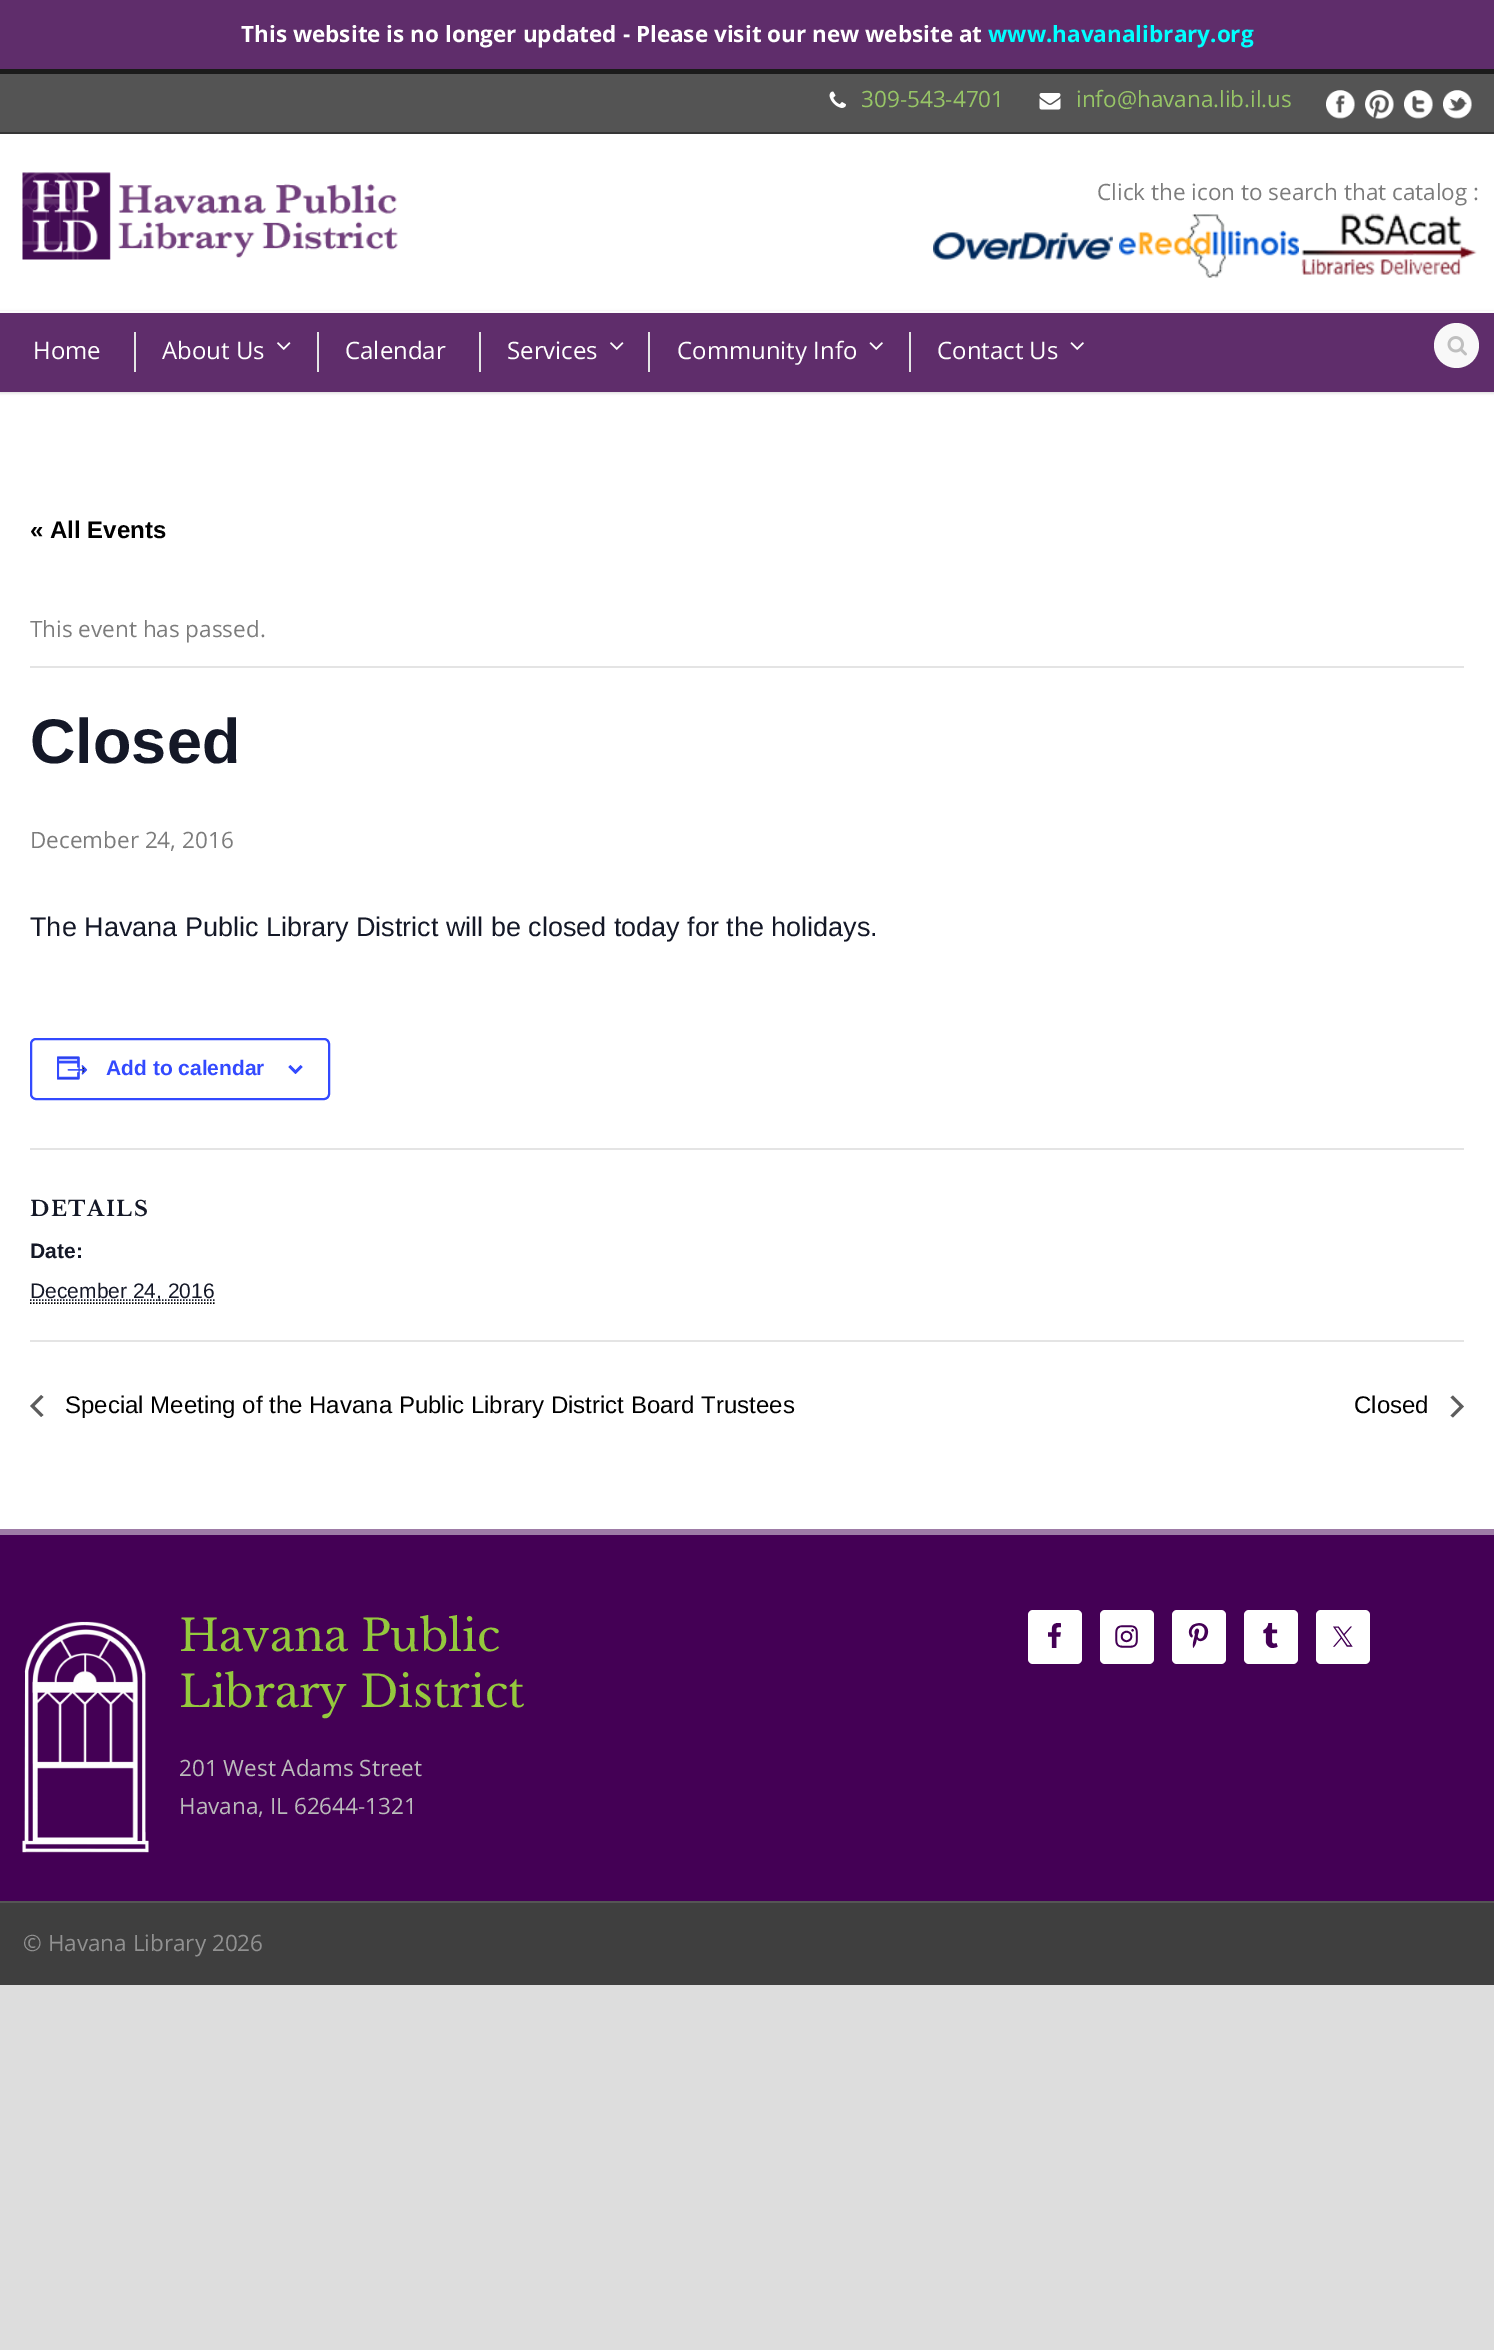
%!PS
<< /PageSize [1494 2350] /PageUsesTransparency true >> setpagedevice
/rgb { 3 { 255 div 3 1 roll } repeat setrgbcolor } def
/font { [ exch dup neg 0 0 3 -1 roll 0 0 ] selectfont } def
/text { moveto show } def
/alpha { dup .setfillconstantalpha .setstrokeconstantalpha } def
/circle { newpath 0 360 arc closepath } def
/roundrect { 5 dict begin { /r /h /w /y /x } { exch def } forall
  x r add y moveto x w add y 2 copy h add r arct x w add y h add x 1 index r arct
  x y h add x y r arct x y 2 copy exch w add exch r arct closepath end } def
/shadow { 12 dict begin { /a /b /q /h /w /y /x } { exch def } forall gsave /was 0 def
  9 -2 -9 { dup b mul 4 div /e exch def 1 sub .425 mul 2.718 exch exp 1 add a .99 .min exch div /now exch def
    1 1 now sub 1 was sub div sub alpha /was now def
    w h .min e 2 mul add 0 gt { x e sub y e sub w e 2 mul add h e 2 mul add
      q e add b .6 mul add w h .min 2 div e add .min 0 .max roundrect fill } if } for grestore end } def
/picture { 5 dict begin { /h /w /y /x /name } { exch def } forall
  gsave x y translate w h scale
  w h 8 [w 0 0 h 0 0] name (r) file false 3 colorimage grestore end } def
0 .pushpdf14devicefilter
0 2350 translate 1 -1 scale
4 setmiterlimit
221 221 221 rgb
0 0 1494 2350 rectfill
95 45 107 rgb
0 0 1494 69 rectfill
255 255 255 rgb
0 134 1494 1395 rectfill
84 84 84 rgb
0 74 1494 58 rectfill
27 27 27 rgb
0 69 1494 5 rectfill
53 53 53 rgb
0 132 1494 2 rectfill
(img_01.rgb) 829 91 17 17 picture
(img_02.rgb) 1039 93 22 17 picture
(img_03.rgb) 1326 90 29 29 picture
(img_04.rgb) 1365 90 29 29 picture
(img_05.rgb) 1404 90 29 29 picture
(img_06.rgb) 1443 90 29 29 picture
(img_07.rgb) 22 172 376 88 picture
(img_08.rgb) 933 232 180 28 picture
(img_09.rgb) 1119 214 180 64 picture
(img_10.rgb) 1301 213 176 62 picture
0 0 0 rgb
0 312 1494 81 0 1.5 0.15 shadow
95 45 107 rgb
0 313 1494 79 rectfill
252 252 252 rgb
0 311 1494 2 rectfill
229 229 229 rgb
134 332 2 40 rectfill
(img_11.rgb) 277 342 14 8 picture
317 332 2 40 rectfill
479 332 2 40 rectfill
(img_11.rgb) 610 342 14 8 picture
648 332 2 40 rectfill
(img_12.rgb) 869 342 14 8 picture
909 332 2 40 rectfill
(img_12.rgb) 1070 342 14 8 picture
248 248 248 rgb
1456.5 345.5 22.5 circle fill
(img_13.rgb) 1447 336 20 20 picture
228 228 228 rgb
30 666 1434 2 rectfill
51 74 255 rgb
2 setlinewidth
31 1039 298 60 5 roundrect stroke
(img_14.rgb) 57 1056 31 24 picture
(img_15.rgb) 288 1065 15 9 picture
228 228 228 rgb
30 1148 1434 2 rectfill
0 0 0 rgb
1.5 setlinewidth
[1.5 1.5] 0 setdash
30 1303 moveto 184.5 0 rlineto stroke
20 24 39 rgb
30 1300 moveto 184.5 0 rlineto stroke
228 228 228 rgb
30 1340 1434 2 rectfill
93 93 93 rgb
43.5 1415 moveto -2.5 2 rlineto -11 -11 rlineto 11 -11 rlineto 2.5 2 rlineto -9 9 rlineto closepath fill
1450.5 1397.5 moveto 2.5 -2 rlineto 11 11 rlineto -11 11 rlineto -2.5 -2 rlineto 9 -9 rlineto closepath fill
68 0 85 rgb
0 1535 1494 366 rectfill
158 124 167 rgb
0 1529 1494 6 rectfill
(img_16.rgb) 22 1621 127 232 picture
255 255 255 rgb
1028 1610 54 54 5 roundrect fill
(img_17.rgb) 1048 1623 13 25 picture
1100 1610 54 54 5 roundrect fill
(img_18.rgb) 1115 1625 23 23 picture
1172 1610 54 54 5 roundrect fill
(img_19.rgb) 1188 1623 21 25 picture
1244 1610 54 54 5 roundrect fill
(img_20.rgb) 1263 1623 15 25 picture
1316 1610 54 54 5 roundrect fill
(img_21.rgb) 1333 1626 20 21 picture
63 63 63 rgb
0 1903 1494 82 rectfill
85 85 85 rgb
0 1901 1494 2 rectfill
/OpenSans-Bold 22.5 font
255 255 255 rgb
(This website is no longer updated - Please visit our new website at) 241 42 text
0 255 255 rgb
(www.havanalibrary.org) 988 42 text
/OpenSans-Regular 22.5 font
151 197 102 rgb
(309-543-4701) 861 107 text
(info@havana.lib.il.us) 1076 107 text
124 124 124 rgb
(Click the icon to search that catalog :) 1097 200 text
/OpenSans-Regular 24 font
255 255 255 rgb
(Home) 33 359 text
(About Us) 162 359 text
(Calendar) 345 359 text
(Services) 507 359 text
(Community Info) 677 359 text
(Contact Us) 937 359 text
/LiberationSans-Bold 24 font
0 0 0 rgb
(« All Events) 30 538 text
/OpenSans-Regular 22.5 font
124 124 124 rgb
(This event has passed.) 30 637 text
/LiberationSans-Bold 63 font
20 24 39 rgb
(Closed) 30 763 text
/OpenSans-Regular 22.5 font
124 124 124 rgb
(December 24, 2016) 30 848 text
/LiberationSans-Regular 27 font
20 24 39 rgb
(The Havana Public Library District will be closed today for the holidays.) 30 936 text
/LiberationSans-Bold 21 font
51 74 255 rgb
(Add to calendar) 106 1075 text
/LibreBaskerville-Bold 21 font
20 24 39 rgb
30 1216 moveto 1.5 0 (DETAILS) ashow
/LiberationSans-Bold 21 font
(Date:) 30 1258 text
/LiberationSans-Regular 21 font
(December 24, 2016) 30 1298 text
/LiberationSans-Regular 24 font
0 0 0 rgb
(Special Meeting of the Havana Public Library District Board Trustees) 65 1413 text
(Closed) 1354 1413 text
/LibreBaskerville-Regular 43.5 font
148 200 61 rgb
(Havana Public) 179 1651 text
(Library District) 179 1707 text
/OpenSans-Regular 22.5 font
187 187 187 rgb
(201 West Adams Street) 179 1776 text
(Havana, IL 62644-1321) 179 1814 text
145 145 145 rgb
(© Havana Library 2026) 23 1951 text
.poppdf14devicefilter showpage
